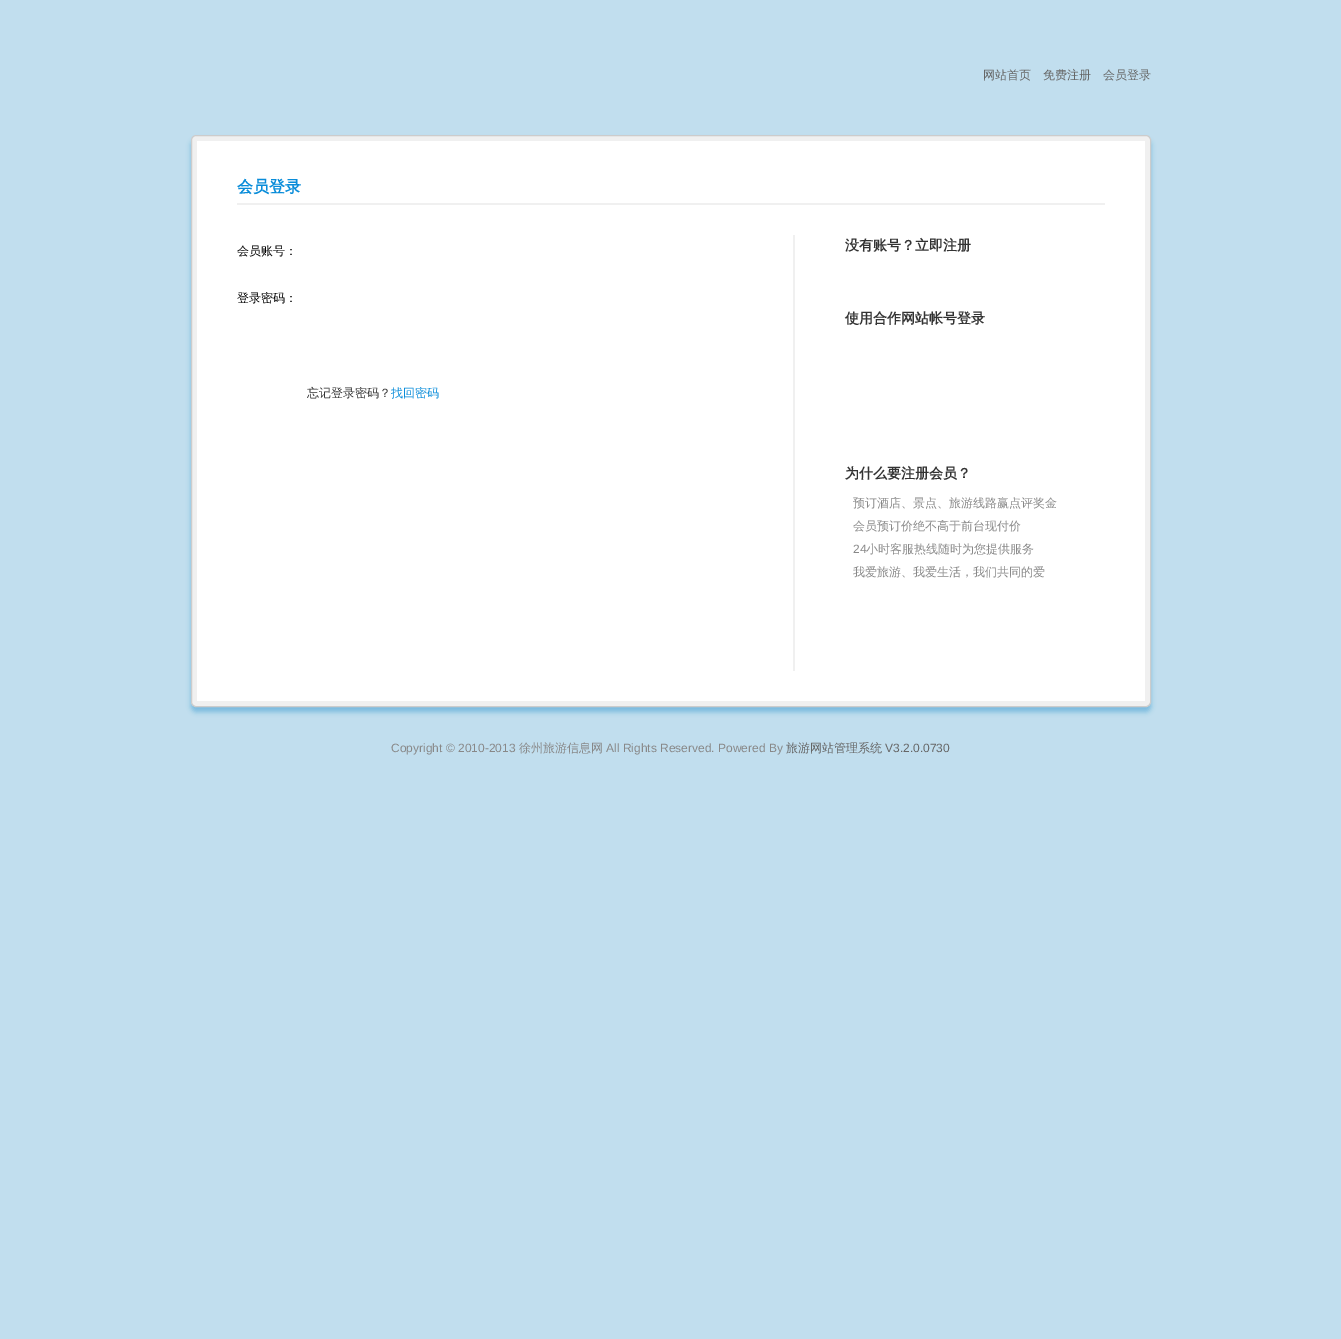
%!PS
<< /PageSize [1341 1339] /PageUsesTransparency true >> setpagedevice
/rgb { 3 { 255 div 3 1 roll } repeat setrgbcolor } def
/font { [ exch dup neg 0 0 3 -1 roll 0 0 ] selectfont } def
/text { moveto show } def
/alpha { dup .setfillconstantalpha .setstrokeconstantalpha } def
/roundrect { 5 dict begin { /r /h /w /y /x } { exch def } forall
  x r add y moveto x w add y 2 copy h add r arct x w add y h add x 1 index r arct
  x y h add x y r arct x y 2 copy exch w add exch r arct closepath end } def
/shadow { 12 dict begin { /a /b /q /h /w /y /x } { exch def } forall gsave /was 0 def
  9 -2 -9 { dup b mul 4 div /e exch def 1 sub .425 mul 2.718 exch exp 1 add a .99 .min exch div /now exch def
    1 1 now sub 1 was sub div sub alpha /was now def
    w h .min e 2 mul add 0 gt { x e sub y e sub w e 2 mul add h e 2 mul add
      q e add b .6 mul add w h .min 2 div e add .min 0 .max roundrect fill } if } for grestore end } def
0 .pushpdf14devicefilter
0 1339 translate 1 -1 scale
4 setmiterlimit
193 222 238 rgb
0 0 1341 1339 rectfill
122 186 222 rgb
191 140 960 572 5 2.5 1 shadow
240 240 240 rgb
191.5 135.5 959 571 4.5 roundrect gsave fill grestore
204 204 204 rgb
stroke
255 255 255 rgb
197 141 948 560 rectfill
240 240 240 rgb
237 203 868 2 rectfill
793 235 2 436 rectfill
/WenQuanYiZenHei-Medium 12 font
102 102 102 rgb
(网站首页) 983 79 text
(免费注册) 1043 79 text
(会员登录) 1103 79 text
/WenQuanYiZenHei-Bold 16 font
9 140 217 rgb
(会员登录) 237 192 text
/WenQuanYiZenHei-Medium 12 font
0 0 0 rgb
(会员账号：) 237 255 text
(登录密码：) 237 302 text
51 51 51 rgb
(忘记登录密码？) 307 397 text
9 140 217 rgb
(找回密码) 391 397 text
/WenQuanYiZenHei-Bold 14 font
51 51 51 rgb
(没有账号？立即注册) 845 250 text
(使用合作网站帐号登录) 845 323 text
(为什么要注册会员？) 845 478 text
/WenQuanYiZenHei-Medium 12 font
136 136 136 rgb
(预订酒店、景点、旅游线路赢点评奖金) 853 507 text
(会员预订价绝不高于前台现付价) 853 530 text
/LiberationSans-Regular 12 font
(24) 853 553 text
/WenQuanYiZenHei-Medium 12 font
(小时客服热线随时为您提供服务) 866 553 text
(我爱旅游、我爱生活，我们共同的爱) 853 576 text
/LiberationSans-Regular 12 font
(Copyright © 2010-2013) 391 752 text
/WenQuanYiZenHei-Medium 12 font
(徐州旅游信息网) 519 752 text
/LiberationSans-Regular 12 font
(All Rights Reserved. Powered By) 606 752 text
/WenQuanYiZenHei-Medium 12 font
102 102 102 rgb
(旅游网站管理系统) 786 752 text
/LiberationSans-Regular 12 font
(V3.2.0.0730) 885 752 text
.poppdf14devicefilter showpage
